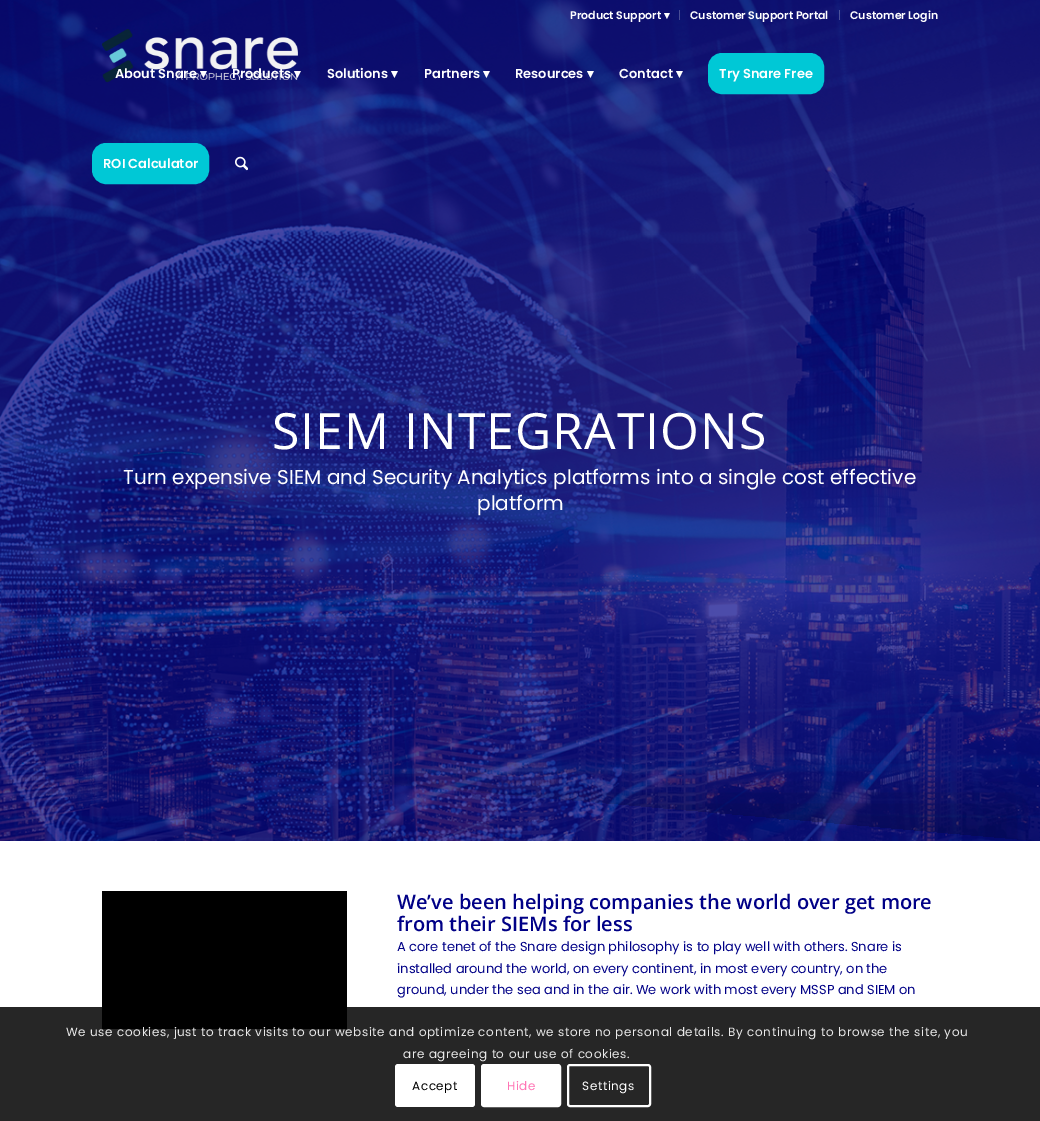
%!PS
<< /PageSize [1040 1121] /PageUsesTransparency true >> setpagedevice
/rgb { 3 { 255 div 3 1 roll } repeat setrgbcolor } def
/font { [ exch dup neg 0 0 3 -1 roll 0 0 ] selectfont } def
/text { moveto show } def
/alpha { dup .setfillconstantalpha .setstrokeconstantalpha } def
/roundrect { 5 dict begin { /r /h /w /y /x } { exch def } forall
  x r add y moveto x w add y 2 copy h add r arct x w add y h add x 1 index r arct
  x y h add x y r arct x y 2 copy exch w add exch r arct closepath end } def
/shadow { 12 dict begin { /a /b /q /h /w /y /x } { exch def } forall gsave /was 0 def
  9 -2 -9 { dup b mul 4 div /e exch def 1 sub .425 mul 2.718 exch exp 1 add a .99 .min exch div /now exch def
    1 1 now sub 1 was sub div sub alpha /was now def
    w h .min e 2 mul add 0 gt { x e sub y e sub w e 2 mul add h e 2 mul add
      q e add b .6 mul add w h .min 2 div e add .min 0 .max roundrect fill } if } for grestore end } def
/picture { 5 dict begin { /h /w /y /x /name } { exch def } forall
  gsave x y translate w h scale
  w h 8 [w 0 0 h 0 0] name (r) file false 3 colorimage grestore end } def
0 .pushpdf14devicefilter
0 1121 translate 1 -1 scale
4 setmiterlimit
255 255 255 rgb
0 0 1040 1121 rectfill
(img_03.rgb) 0 0 1040 841 picture
73 77 149 rgb
679 10 1 10 rectfill
0.25 alpha
255 255 255 rgb
839 10 1 10 rectfill
1 alpha
(img_01.rgb) 102 29 196 54 picture
0 200 214 rgb
709 54 114 39 13 roundrect gsave fill grestore
2 setlinewidth
stroke
93 144 115 39 13 roundrect gsave fill grestore
stroke
(img_02.rgb) 235 156 13 15 picture
gsave
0 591 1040 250 rectclip
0 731 moveto 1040 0 rlineto 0 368 rlineto -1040 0 rlineto closepath -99.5 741 moveto 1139.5 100 rlineto -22 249 rlineto -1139.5 -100 rlineto closepath eoclip newpath
0 0 0 rgb
-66 798 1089 234 0 22 0.2 shadow
grestore
0 0 0 rgb
102 891 245 138 rectfill
0.85 alpha
0 1007 1040 114 rectfill
1 alpha
255 255 255 rgb
395 1064 80 43 3 roundrect fill
482 1065 78 41 2 roundrect gsave fill grestore
stroke
568 1065 82 41 2 roundrect stroke
/Poppins-SemiBold 11 font
(Product Support) 570 19 text
/DejaVuSans-Bold 11 font
(▾) 664 19 text
/Poppins-SemiBold 11 font
(Customer Support Portal) 690 19 text
(Customer Login) 850 19 text
/Poppins-SemiBold 13 font
(About Snare) 115 78 text
/DejaVuSans-Bold 13 font
(▾) 200 78 text
/Poppins-SemiBold 13 font
(Products) 232 78 text
/DejaVuSans-Bold 13 font
(▾) 294 78 text
/Poppins-SemiBold 13 font
(Solutions) 327 78 text
/DejaVuSans-Bold 13 font
(▾) 391 78 text
/Poppins-SemiBold 13 font
(Partners) 424 78 text
/DejaVuSans-Bold 13 font
(▾) 483 78 text
/Poppins-SemiBold 13 font
(Resources) 515 78 text
/DejaVuSans-Bold 13 font
(▾) 587 78 text
/Poppins-SemiBold 13 font
(Contact) 619 78 text
/DejaVuSans-Bold 13 font
(▾) 676 78 text
/Poppins-SemiBold 13 font
(Try Snare Free) 719 78 text
(ROI Calculator) 103 168 text
/OpenSans-Regular 50 font
272 449 moveto 1 0 (SIEM INTEGRATIONS) ashow
/Poppins-Regular 20 font
(Turn expensive SIEM and Security Analytics platforms into a single cost effective) 123 484 text
(platform) 477 510 text
/OpenSans-SemiBold 20 font
0 0 134 rgb
(We’ve been helping companies the world over get more) 397 909 text
(from their SIEMs for less) 397 931 text
/Poppins-Regular 13 font
(A core tenet of the Snare design philosophy is to play well with others. Snare is) 397 951 text
(installed around the world, on every continent, in most every country, on the) 397 973 text
(ground, under the sea and in the air. We work with most every MSSP and SIEM on) 397 994 text
/Poppins-Regular 12 font
233 233 233 rgb
66 1036 moveto 0.6 0 (We use cookies, just to track visits to our website and optimize content, we store no personal details. By continuing to browse the site, you) ashow
403 1058 moveto 0.6 0 (are agreeing to our use of cookies.) ashow
0 0 0 rgb
412 1090 moveto 0.6 0 (Accept) ashow
255 117 181 rgb
507 1090 moveto 0.6 0 (Hide) ashow
255 255 255 rgb
582 1090 moveto 0.6 0 (Settings) ashow
.poppdf14devicefilter showpage
